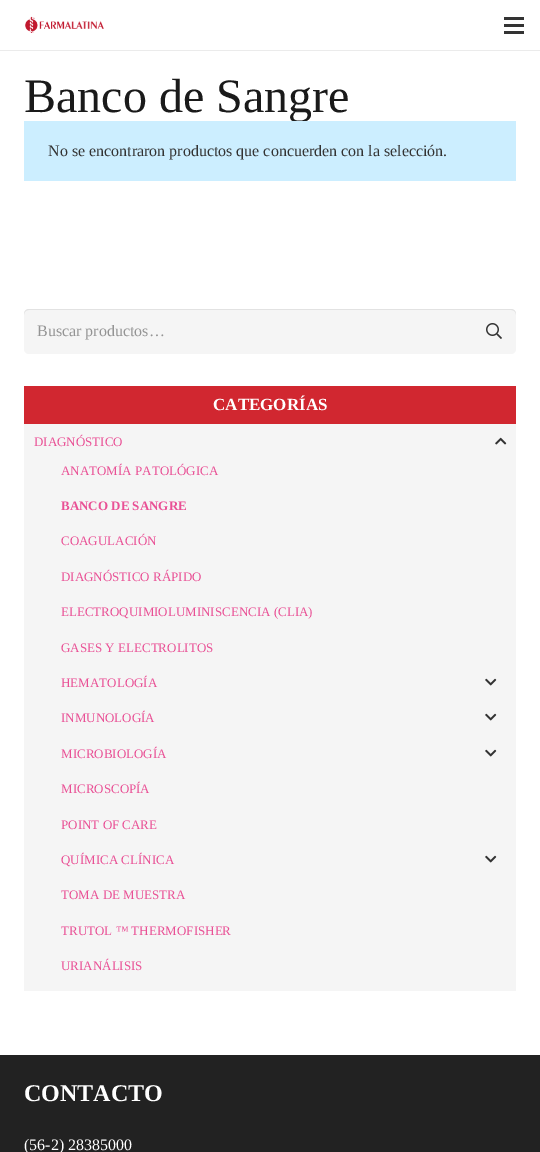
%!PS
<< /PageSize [540 1152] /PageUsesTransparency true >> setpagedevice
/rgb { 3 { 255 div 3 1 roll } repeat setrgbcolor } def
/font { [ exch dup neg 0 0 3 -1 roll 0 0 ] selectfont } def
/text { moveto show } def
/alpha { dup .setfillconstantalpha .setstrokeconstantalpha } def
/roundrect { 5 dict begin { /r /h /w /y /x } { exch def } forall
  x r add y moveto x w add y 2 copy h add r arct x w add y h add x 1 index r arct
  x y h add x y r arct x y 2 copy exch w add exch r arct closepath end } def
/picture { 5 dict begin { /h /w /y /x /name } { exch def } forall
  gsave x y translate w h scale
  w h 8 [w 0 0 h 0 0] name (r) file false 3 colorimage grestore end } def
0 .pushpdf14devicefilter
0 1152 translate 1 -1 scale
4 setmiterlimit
255 255 255 rgb
0 0 540 1152 rectfill
235 235 235 rgb
0 50 540 1 rectfill
(img_01.rgb) 25 16 79 17 picture
51 51 51 rgb
504 24 20 3 rectfill
504 17 20 3 rectfill
504 31 20 3 rectfill
245 245 245 rgb
24 309 492 45 5 roundrect fill
0.08 alpha
0 0 0 rgb
29 310 moveto 482 0 rlineto 3 0 5 2 5 5 rcurveto 0 -1 rlineto 0 -3 -2 -5 -5 -5 rcurveto -482 0 rlineto -3 0 -5 2 -5 5 rcurveto 0 1 rlineto 0 -3 2 -5 5 -5 rcurveto closepath fill
1 alpha
(img_02.rgb) 486 323 16 16 picture
209 39 48 rgb
24 386 492 38 rectfill
245 245 245 rgb
24 424 492 567 rectfill
(img_03.rgb) 495 437 12 8 picture
(img_04.rgb) 485 678 12 8 picture
(img_04.rgb) 485 713 12 8 picture
(img_04.rgb) 485 749 12 8 picture
(img_04.rgb) 485 855 12 8 picture
34 34 34 rgb
0 1055 540 97 rectfill
/LiberationSerif-Regular 48 font
26 26 26 rgb
(Banco de Sangre) 24 112 text
204 238 255 rgb
24 121 492 60 rectfill
/LiberationSerif-Regular 16 font
51 51 51 rgb
(No se encontraron productos que concuerden con la selección.) 48 156 text
148 148 148 rgb
(Buscar productos…) 37 336 text
/LiberationSerif-Bold 17 font
255 255 255 rgb
(CATEGORÍAS) 213 410 text
/LiberationSerif-Regular 13 font
233 80 149 rgb
(DIAGNÓSTICO) 34 446 text
(ANATOMÍA PATOLÓGICA) 61 475 text
/LiberationSerif-Bold 13 font
(BANCO DE SANGRE) 61 510 text
/LiberationSerif-Regular 13 font
(COAGULACIÓN) 61 545 text
(DIAGNÓSTICO RÁPIDO) 61 581 text
(ELECTROQUIMIOLUMINISCENCIA \(CLIA\)) 61 616 text
(GASES Y ELECTROLITOS) 61 652 text
(HEMATOLOGÍA) 61 687 text
(INMUNOLOGÍA) 61 722 text
(MICROBIOLOGÍA) 61 758 text
(MICROSCOPÍA) 61 793 text
(POINT OF CARE) 61 829 text
(QUÍMICA CLÍNICA) 61 864 text
(TOMA DE MUESTRA) 61 899 text
(TRUTOL ™ THERMOFISHER) 61 935 text
(URIANÁLISIS) 61 970 text
/LiberationSerif-Bold 24 font
255 255 255 rgb
(CONTACTO) 24 1101 text
/LiberationSerif-Regular 16 font
(\(56-2\) 28385000) 24 1150 text
.poppdf14devicefilter showpage
